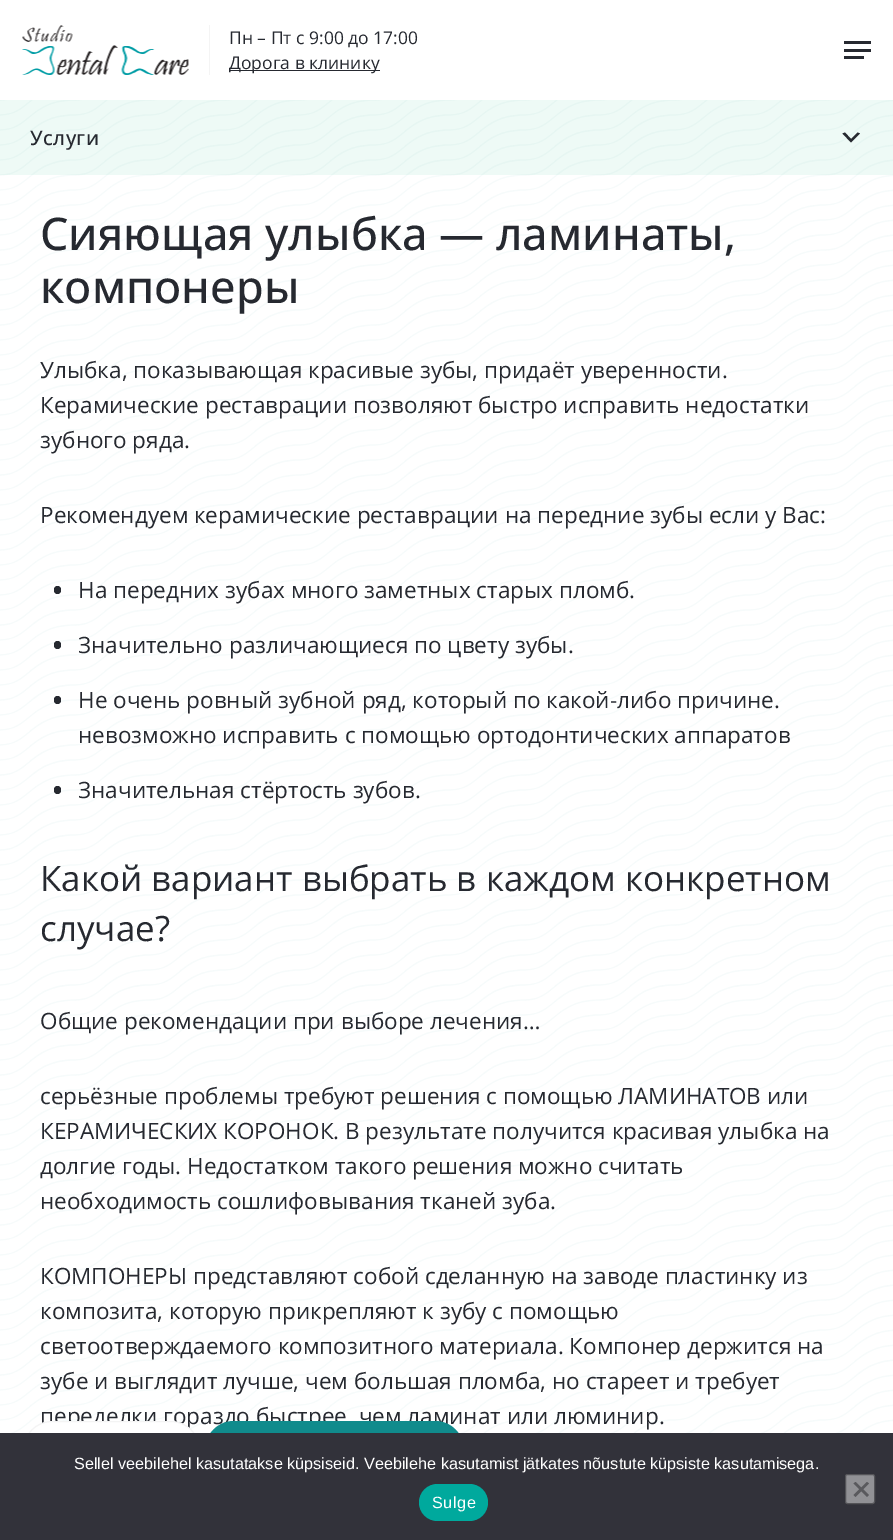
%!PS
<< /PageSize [893 1540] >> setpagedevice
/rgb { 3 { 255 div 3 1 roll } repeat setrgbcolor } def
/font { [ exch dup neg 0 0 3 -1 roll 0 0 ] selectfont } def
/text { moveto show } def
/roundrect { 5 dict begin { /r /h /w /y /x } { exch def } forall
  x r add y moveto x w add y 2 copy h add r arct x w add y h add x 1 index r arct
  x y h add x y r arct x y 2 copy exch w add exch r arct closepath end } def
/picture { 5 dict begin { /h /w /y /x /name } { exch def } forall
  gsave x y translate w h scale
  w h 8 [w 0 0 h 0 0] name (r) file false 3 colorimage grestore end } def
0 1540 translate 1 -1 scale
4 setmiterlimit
255 255 255 rgb
0 0 893 1540 rectfill
(img_01.rgb) 22 25 167 50 picture
244 244 244 rgb
209 25 1 50 rectfill
38 41 48 rgb
230 70 150 1 rectfill
844 41 27 3 rectfill
844 56 20 3 rectfill
844 49 27 3 rectfill
238 250 246 rgb
0 100 893 75 rectfill
(img_02.rgb) 0 100 893 75 picture
38 41 48 rgb
845 132.5 moveto 6 6.5 rlineto 6.5 -6.5 rlineto 2.5 1 rlineto -9 9 rlineto -8.5 -9 rlineto closepath fill
(img_03.rgb) 0 175 893 1258 picture
54 586 7 8 3.5 roundrect fill
54 641 7 8 3.5 roundrect fill
54 696 7 8 3.5 roundrect fill
54 786 7 8 3.5 roundrect fill
/OpenSans-Regular 17.5 font
(Пн – Пт с 9:00 до 17:00) 229 44 text
(Дорога в клинику) 229 69 text
/OpenSans-Medium 20 font
30 145 moveto 0.5 0 (Услуги) ashow
/OpenSans-Medium 45 font
(Сияющая улыбка — ламинаты,) 40 250 text
(компонеры) 40 303 text
/OpenSans-Regular 22.5 font
(Улыбка, показывающая красивые зубы, придаёт уверенности.) 40 378 text
(Керамические реставрации позволяют быстро исправить недостатки) 40 413 text
(зубного ряда.) 40 448 text
(Рекомендуем керамические реставрации на передние зубы если у Вас:) 40 523 text
(На передних зубах много заметных старых пломб.) 78 598 text
(Значительно различающиеся по цвету зубы.) 78 653 text
(Не очень ровный зубной ряд, который по какой-либо причине.) 78 708 text
(невозможно исправить с помощью ортодонтических аппаратов) 78 743 text
(Значительная стёртость зубов.) 78 798 text
/OpenSans-Regular 35 font
(Какой вариант выбрать в каждом конкретном) 40 891 text
(случае?) 40 941 text
/OpenSans-Regular 22.5 font
(Общие рекомендации при выборе лечения…) 40 1029 text
(серьёзные проблемы требуют решения с помощью ЛАМИНАТОВ или) 40 1104 text
(КЕРАМИЧЕСКИХ КОРОНОК. В результате получится красивая улыбка на) 40 1139 text
(долгие годы. Недостатком такого решения можно считать) 40 1174 text
(необходимость сошлифовывания тканей зуба.) 40 1209 text
(КОМПОНЕРЫ представляют собой сделанную на заводе пластинку из) 40 1284 text
(композита, которую прикрепляют к зубу с помощью) 40 1319 text
(светоотверждаемого композитного материала. Компонер держится на) 40 1354 text
(зубе и выглядит лучше, чем большая пломба, но стареет и требует) 40 1389 text
(переделки гораздо быстрее, чем ламинат или люминир.) 40 1424 text
16 139 140 rgb
205 1421 259 58 29 roundrect fill
255 255 255 rgb
23.5 1421.5 176 57 28.5 roundrect gsave fill grestore
244 244 244 rgb
stroke
50 50 58 rgb
0 1433 893 107 rectfill
/LiberationSans-Regular 16.25 font
255 255 255 rgb
(Sellel veebilehel kasutatakse küpsiseid. Veebilehe kasutamist jätkates nõustute küpsiste kasutamisega.) 74 1469 text
0 169 157 rgb
419 1484 69 37 18.5 roundrect fill
255 255 255 rgb
432 1508 moveto 0.5 0 (Sulge) ashow
145 145 149 rgb
845.5 1474.5 29 29 2 roundrect gsave fill grestore
84 84 88 rgb
stroke
89 89 93 rgb
867 1482 moveto 2 1.5 rlineto -13.5 13.5 rlineto -2 -2 rlineto closepath fill
853.5 1483.5 moveto 2 -1.5 rlineto 13.5 13 rlineto -2 2 rlineto closepath fill
showpage
